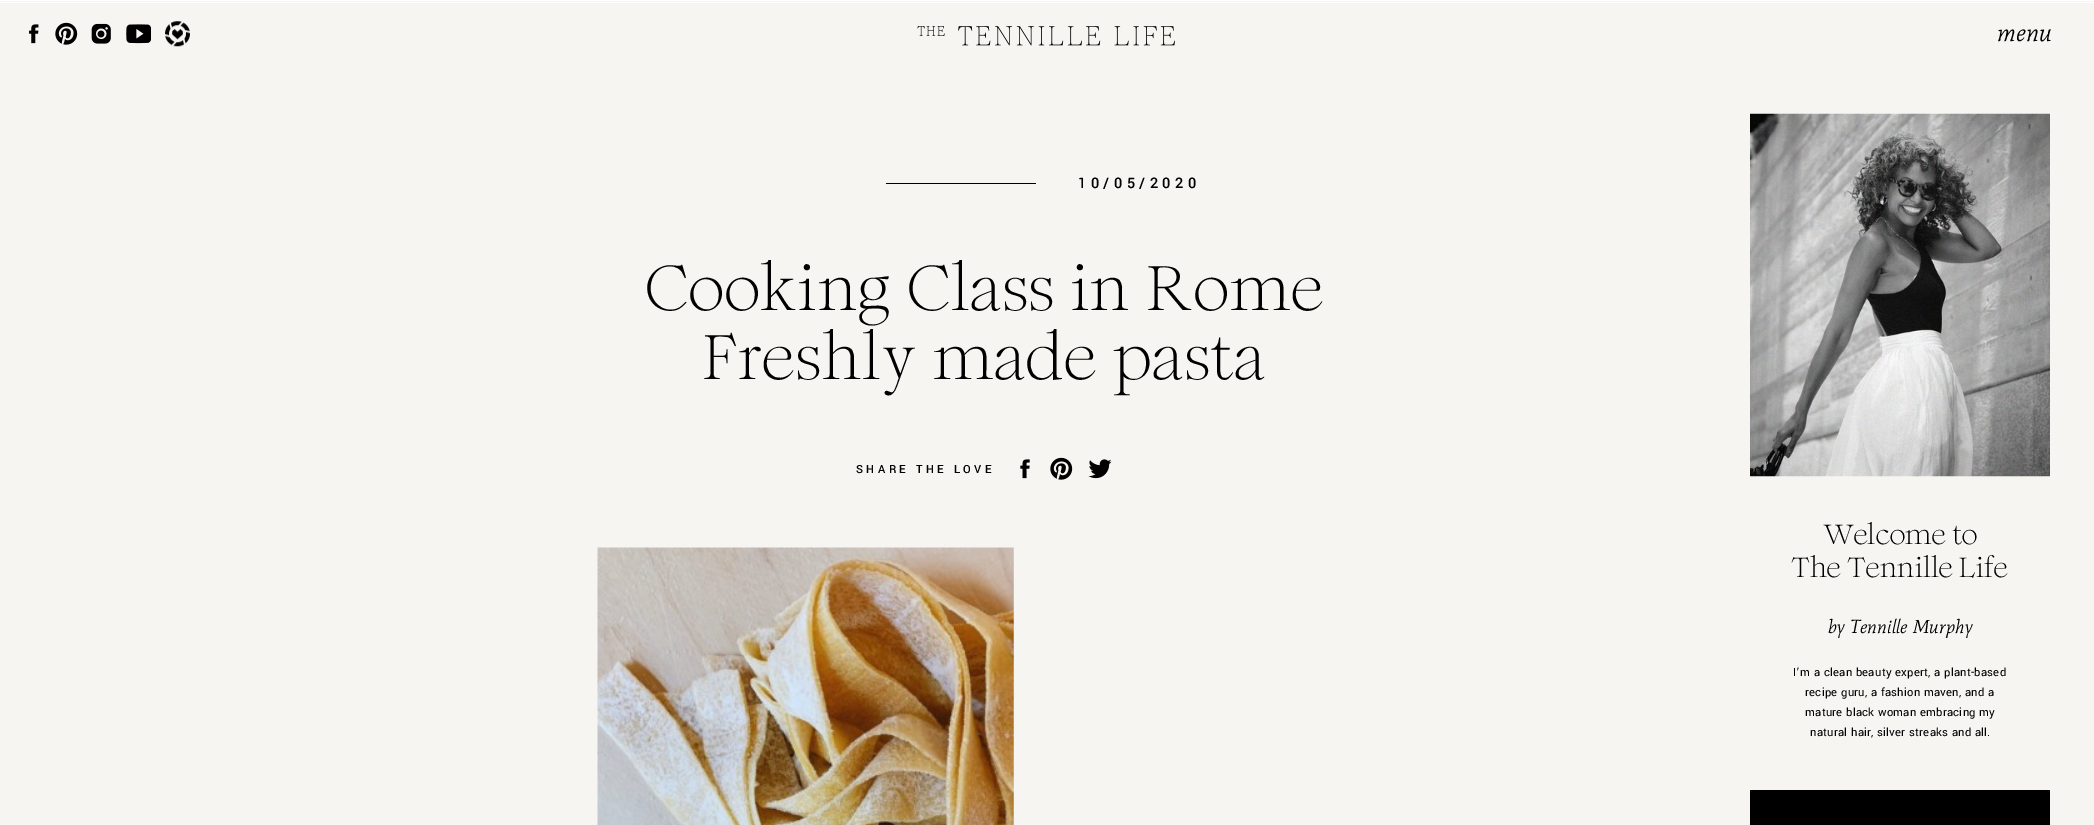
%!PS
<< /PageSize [2094 825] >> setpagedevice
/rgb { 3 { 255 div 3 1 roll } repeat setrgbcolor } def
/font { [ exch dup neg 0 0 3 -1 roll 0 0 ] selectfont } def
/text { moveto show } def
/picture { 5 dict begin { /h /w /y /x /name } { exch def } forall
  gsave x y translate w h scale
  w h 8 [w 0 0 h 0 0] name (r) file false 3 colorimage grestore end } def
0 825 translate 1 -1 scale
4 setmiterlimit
255 255 255 rgb
0 0 2094 825 rectfill
247 245 242 rgb
0 3 2094 822 rectfill
(img_01.rgb) 917 26 258 20 picture
(img_02.rgb) 29 24 10 20 picture
(img_03.rgb) 55 22 23 23 picture
(img_04.rgb) 91 23 20 21 picture
(img_05.rgb) 126 24 25 20 picture
(img_06.rgb) 165 21 25 26 picture
0 0 0 rgb
886 183 150 1 rectfill
(img_07.rgb) 1020 459 10 20 picture
(img_03.rgb) 1050 457 23 23 picture
(img_08.rgb) 1088 459 24 20 picture
(img_09.rgb) 597 547 417 278 picture
247 245 242 rgb
0 1 2094 1 rectfill
(img_10.rgb) 1750 113 300 364 picture
0 0 0 rgb
1750 790 300 35 rectfill
/Mate-Italic 25 font
(menu) 1997 41 text
/Yantramanav-Medium 16.25 font
1078 188 moveto 4.4 0 (10/05/2020) ashow
/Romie-Regular 62.5 font
646 310 moveto 1.25 0 (Cooking Class in Rome) ashow
703 379 moveto 1.25 0 (Freshly made pasta) ashow
/Yantramanav-Medium 12.5 font
856 473 moveto 3.4 0 (SHARE THE LOVE) ashow
/Romie-Regular 27.5 font
(Welcome to) 1823 544 text
(The Tennille Life) 1791 577 text
/Mate-Italic 18.75 font
(by Tennille Murphy) 1828 633 text
/Yantramanav-Regular 12.5 font
1793 676 moveto 0.25 0 (I’m a clean beauty expert, a plant-based) ashow
1805 696 moveto 0.25 0 (recipe guru, a fashion maven, and a) ashow
1805 716 moveto 0.25 0 (mature black woman embracing my) ashow
1810 736 moveto 0.25 0 (natural hair, silver streaks and all.) ashow
showpage
